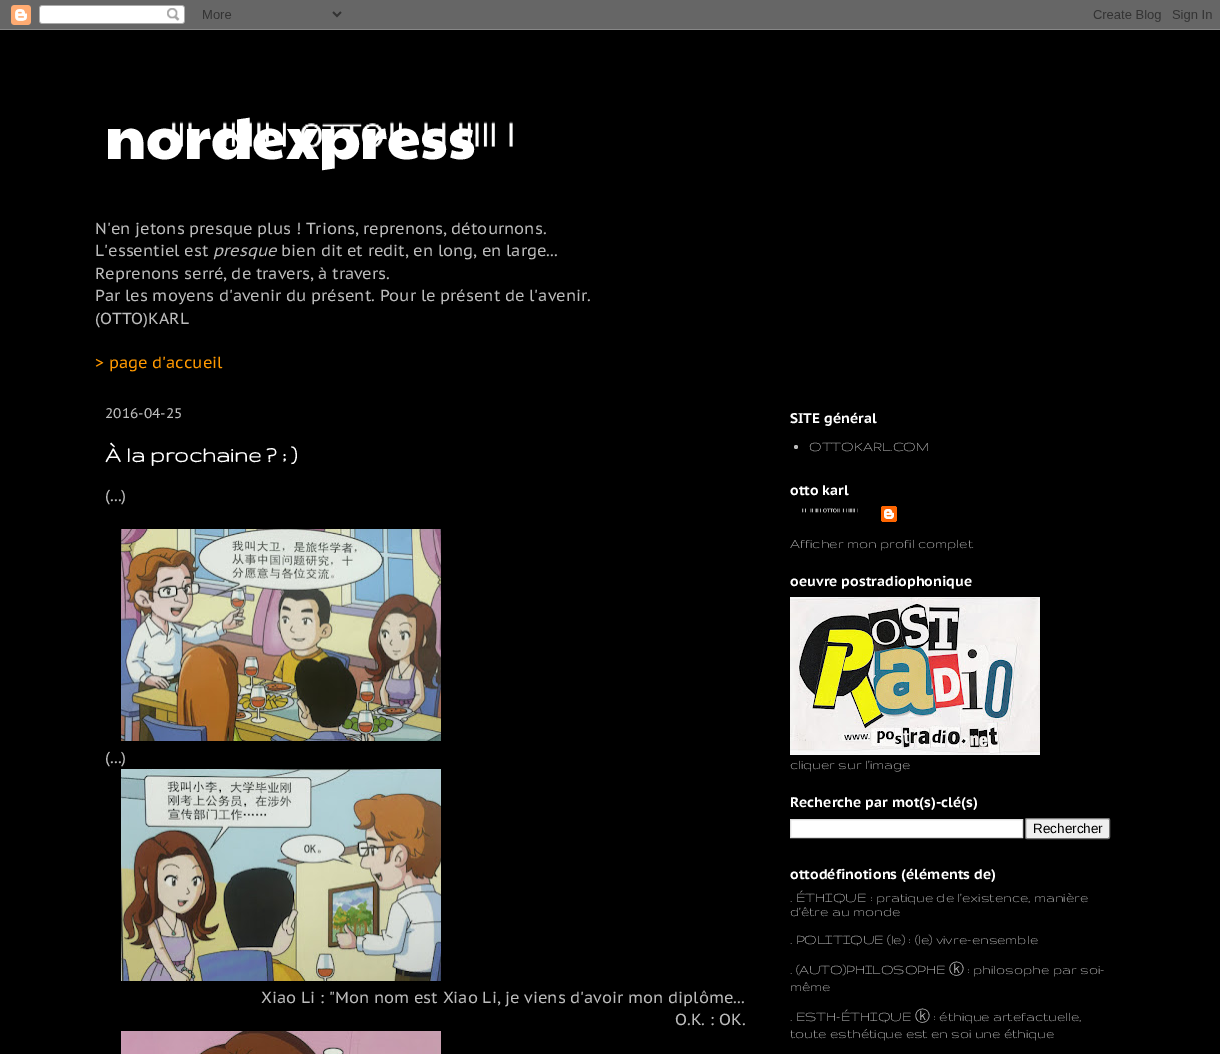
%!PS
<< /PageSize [1220 1054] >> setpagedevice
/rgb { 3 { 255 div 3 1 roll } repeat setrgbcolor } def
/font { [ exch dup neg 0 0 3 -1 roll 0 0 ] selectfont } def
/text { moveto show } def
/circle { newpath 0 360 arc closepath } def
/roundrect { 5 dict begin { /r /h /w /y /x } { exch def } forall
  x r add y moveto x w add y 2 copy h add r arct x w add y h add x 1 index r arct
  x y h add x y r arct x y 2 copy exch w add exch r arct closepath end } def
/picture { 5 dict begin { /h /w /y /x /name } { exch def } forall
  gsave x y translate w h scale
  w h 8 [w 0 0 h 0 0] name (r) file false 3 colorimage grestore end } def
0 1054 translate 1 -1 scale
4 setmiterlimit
0 0 0 rgb
0 0 1220 1054 rectfill
(img_01.rgb) 0 0 1220 30 picture
(img_02.rgb) 171 121 342 28 picture
(img_03.rgb) 121 529 320 212 picture
(img_04.rgb) 121 769 320 212 picture
(img_05.rgb) 121 1031 320 23 picture
187 187 187 rgb
796 447 2 circle fill
(img_06.rgb) 802 508 56 5 picture
(img_07.rgb) 881 506 16 16 picture
(img_08.rgb) 790 597 250 158 picture
255 255 255 rgb
790.5 819.5 moveto 232 0 rlineto 0 18 rlineto -232 0 rlineto closepath gsave fill grestore
221 221 221 rgb
stroke
239 239 239 rgb
1025.5 818.5 84 20 1.5 roundrect gsave fill grestore
118 118 118 rgb
stroke
/PaytoneOne-Regular 60 font
255 255 255 rgb
(nordexpress) 105 159 text
/PTSansCaption-Regular 16 font
187 187 187 rgb
(N'en jetons presque plus ! Trions, reprenons, détournons.) 95 234 text
(L'essentiel est) 95 256 text
/PTSansCaption-Italic 16 font
(presque) 213 256 text
/PTSansCaption-Regular 16 font
(bien dit et redit, en long, en large...) 281 256 text
(Reprenons serré, de travers, à travers.) 95 279 text
(Par les moyens d'avenir du présent. Pour le présent de l'avenir.) 95 301 text
(\(OTTO\)KARL) 95 324 text
255 153 0 rgb
(> page d'accueil) 95 368 text
/PTSansCaption-Regular 14 font
187 187 187 rgb
(2016-04-25) 105 418 text
/Gruppo-Bold 24 font
255 255 255 rgb
(À la prochaine ? ; \)) 105 462 text
/PTSansCaption-Regular 16 font
187 187 187 rgb
(\(...\)) 105 501 text
(\(...\)) 105 763 text
(Xiao Li : "Mon nom est Xiao Li, je viens d'avoir mon diplôme...) 261 1003 text
(O.K. : OK.) 675 1025 text
/PTSansCaption-Bold 14 font
255 255 255 rgb
(SITE général) 790 423 text
/Gruppo-Regular 15 font
187 187 187 rgb
(OTTOKARL.COM) 809 451 text
/PTSansCaption-Bold 14 font
255 255 255 rgb
(otto karl) 790 495 text
/Gruppo-Regular 15 font
187 187 187 rgb
(Afficher mon profil complet) 790 548 text
/PTSansCaption-Bold 14 font
255 255 255 rgb
(oeuvre postradiophonique) 790 586 text
/Gruppo-Regular 15 font
187 187 187 rgb
(cliquer sur l'image) 790 769 text
/PTSansCaption-Bold 14 font
255 255 255 rgb
(Recherche par mot\(s\)-clé\(s\)) 790 807 text
/LiberationSans-Regular 13.5 font
0 0 0 rgb
(Rechercher) 1033 833 text
/PTSansCaption-Bold 14 font
255 255 255 rgb
(ottodéfinotions \(éléments de\)) 790 879 text
/Gruppo-Regular 15 font
187 187 187 rgb
(. ÉTHIQUE : pratique de l'existence, manière) 790 902 text
(d'être au monde) 790 916 text
(. POLITIQUE \(le\) : \(le\) vivre-ensemble) 790 944 text
(. \(AUTO\)PHILOSOPHE) 790 974 text
/WenQuanYiZenHei-Medium 15 font
(ⓚ) 949 974 text
/Gruppo-Regular 15 font
(: philosophe par soi-) 967 974 text
(même) 790 991 text
(. ESTH-ÉTHIQUE) 790 1021 text
/WenQuanYiZenHei-Medium 15 font
(ⓚ) 915 1021 text
/Gruppo-Regular 15 font
(: éthique artefactuelle,) 933 1021 text
(toute esthétique est en soi une éthique) 790 1038 text
showpage
